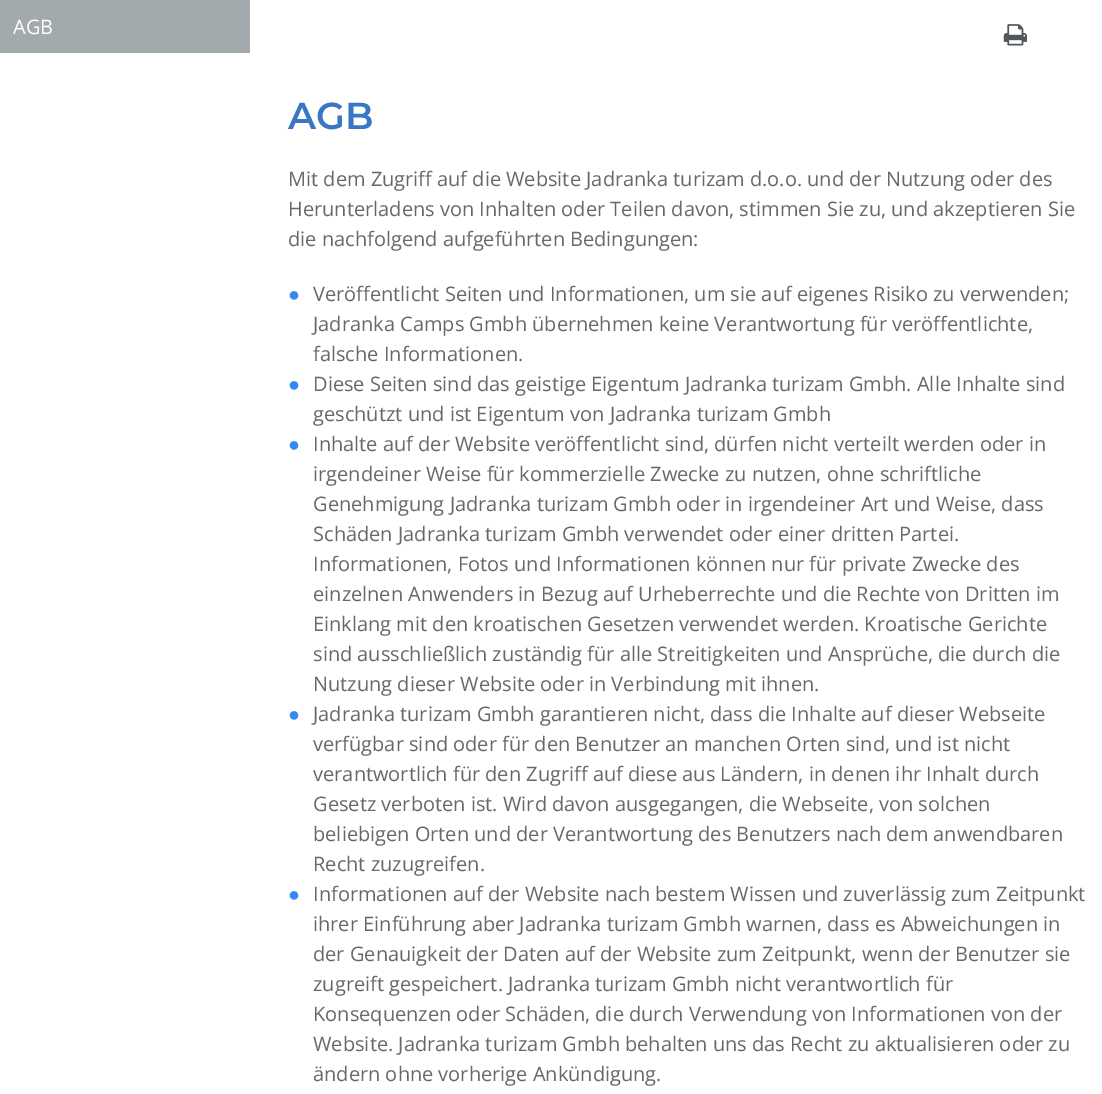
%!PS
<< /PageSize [1102 1094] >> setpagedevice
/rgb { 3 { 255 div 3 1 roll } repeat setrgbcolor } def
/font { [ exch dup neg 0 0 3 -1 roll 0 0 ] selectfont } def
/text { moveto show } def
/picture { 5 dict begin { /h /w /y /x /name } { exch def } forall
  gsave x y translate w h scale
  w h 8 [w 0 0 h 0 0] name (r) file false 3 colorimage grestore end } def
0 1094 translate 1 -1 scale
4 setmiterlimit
255 255 255 rgb
0 0 1102 1094 rectfill
163 170 173 rgb
0 0 250 53 rectfill
(img_01.rgb) 1003 24 24 22 picture
/OpenSans-Regular 20 font
255 255 255 rgb
(AGB) 13 34 text
/Montserrat-Thin 37.5 font
57 118 195 rgb
(AGB) 288 129 text
/OpenSans-Regular 20 font
104 104 104 rgb
(Mit dem Zugriff auf die Website Jadranka turizam d.o.o. und der Nutzung oder des) 288 186 text
(Herunterladens von Inhalten oder Teilen davon, stimmen Sie zu, und akzeptieren Sie) 288 216 text
(die nachfolgend aufgeführten Bedingungen:) 288 246 text
/LiberationSans-Regular 20 font
53 136 243 rgb
(●) 288 301 text
/OpenSans-Regular 20 font
104 104 104 rgb
(Veröffentlicht Seiten und Informationen, um sie auf eigenes Risiko zu verwenden;) 313 301 text
(Jadranka Camps Gmbh übernehmen keine Verantwortung für veröffentlichte,) 313 331 text
(falsche Informationen.) 313 361 text
/LiberationSans-Regular 20 font
53 136 243 rgb
(●) 288 391 text
/OpenSans-Regular 20 font
104 104 104 rgb
(Diese Seiten sind das geistige Eigentum Jadranka turizam Gmbh. Alle Inhalte sind) 313 391 text
(geschützt und ist Eigentum von Jadranka turizam Gmbh) 313 421 text
/LiberationSans-Regular 20 font
53 136 243 rgb
(●) 288 451 text
/OpenSans-Regular 20 font
104 104 104 rgb
(Inhalte auf der Website veröffentlicht sind, dürfen nicht verteilt werden oder in) 313 451 text
(irgendeiner Weise für kommerzielle Zwecke zu nutzen, ohne schriftliche) 313 481 text
(Genehmigung Jadranka turizam Gmbh oder in irgendeiner Art und Weise, dass) 313 511 text
(Schäden Jadranka turizam Gmbh verwendet oder einer dritten Partei.) 313 541 text
(Informationen, Fotos und Informationen können nur für private Zwecke des) 313 571 text
(einzelnen Anwenders in Bezug auf Urheberrechte und die Rechte von Dritten im) 313 601 text
(Einklang mit den kroatischen Gesetzen verwendet werden. Kroatische Gerichte) 313 631 text
(sind ausschließlich zuständig für alle Streitigkeiten und Ansprüche, die durch die) 313 661 text
(Nutzung dieser Website oder in Verbindung mit ihnen.) 313 691 text
/LiberationSans-Regular 20 font
53 136 243 rgb
(●) 288 721 text
/OpenSans-Regular 20 font
104 104 104 rgb
(Jadranka turizam Gmbh garantieren nicht, dass die Inhalte auf dieser Webseite) 313 721 text
(verfügbar sind oder für den Benutzer an manchen Orten sind, und ist nicht) 313 751 text
(verantwortlich für den Zugriff auf diese aus Ländern, in denen ihr Inhalt durch) 313 781 text
(Gesetz verboten ist. Wird davon ausgegangen, die Webseite, von solchen) 313 811 text
(beliebigen Orten und der Verantwortung des Benutzers nach dem anwendbaren) 313 841 text
(Recht zuzugreifen.) 313 871 text
/LiberationSans-Regular 20 font
53 136 243 rgb
(●) 288 901 text
/OpenSans-Regular 20 font
104 104 104 rgb
(Informationen auf der Website nach bestem Wissen und zuverlässig zum Zeitpunkt) 313 901 text
(ihrer Einführung aber Jadranka turizam Gmbh warnen, dass es Abweichungen in) 313 931 text
(der Genauigkeit der Daten auf der Website zum Zeitpunkt, wenn der Benutzer sie) 313 961 text
(zugreift gespeichert. Jadranka turizam Gmbh nicht verantwortlich für) 313 991 text
(Konsequenzen oder Schäden, die durch Verwendung von Informationen von der) 313 1021 text
(Website. Jadranka turizam Gmbh behalten uns das Recht zu aktualisieren oder zu) 313 1051 text
(ändern ohne vorherige Ankündigung.) 313 1081 text
showpage
